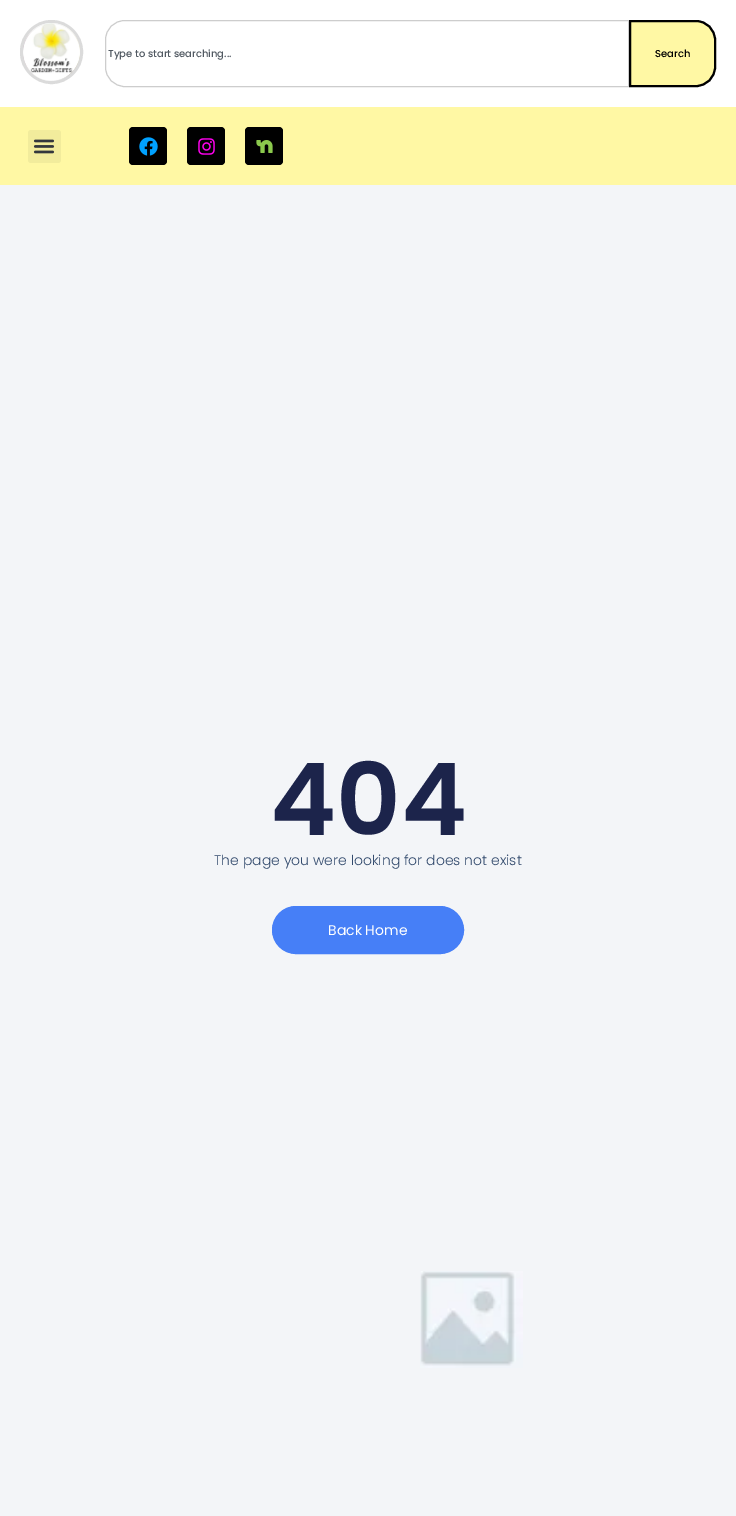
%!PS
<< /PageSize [736 1516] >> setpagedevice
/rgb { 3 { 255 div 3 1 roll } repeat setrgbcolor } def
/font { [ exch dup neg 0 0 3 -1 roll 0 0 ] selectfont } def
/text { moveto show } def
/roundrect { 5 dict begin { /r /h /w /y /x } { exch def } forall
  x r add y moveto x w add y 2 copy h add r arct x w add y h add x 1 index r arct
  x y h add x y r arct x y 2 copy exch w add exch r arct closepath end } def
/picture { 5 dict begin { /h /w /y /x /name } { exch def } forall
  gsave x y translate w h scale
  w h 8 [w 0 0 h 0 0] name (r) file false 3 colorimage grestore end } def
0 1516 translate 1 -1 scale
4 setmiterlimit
255 255 255 rgb
0 0 736 1516 rectfill
219 219 219 rgb
3 setlinewidth
21.5 21.5 60 61 30 roundrect stroke
(img_01.rgb) 23 23 57 58 picture
205 205 205 rgb
1 setlinewidth
125 20.5 moveto 503.5 0 rlineto 0 66 rlineto -503.5 0 rlineto -11 0 -19.5 -8.5 -19.5 -19.5 rcurveto 0 -27 rlineto 0 -11 8.5 -19.5 19.5 -19.5 rcurveto closepath stroke
255 248 164 rgb
630 21 moveto 66 0 rlineto 10.5 0 19 8.5 19 19 rcurveto 0 27 rlineto 0 10.5 -8.5 19 -19 19 rcurveto -66 0 rlineto closepath gsave fill grestore
0 0 0 rgb
2 setlinewidth
stroke
255 248 164 rgb
0 107 736 78 rectfill
242 236 156 rgb
28 130 33 33 3 roundrect fill
(img_02.rgb) 33 139 22 15 picture
0 0 0 rgb
129 127 38 38 4 roundrect fill
(img_03.rgb) 139 137 19 19 picture
187 127 38 38 4 roundrect fill
(img_04.rgb) 198 138 17 17 picture
245 127 38 38 4 roundrect fill
(img_05.rgb) 256 140 17 13 picture
243 245 248 rgb
0 185 736 1331 rectfill
(img_06.rgb) 420 1271 103 97 picture
70 127 247 rgb
272.5 906.5 191 47 23.5 roundrect gsave fill grestore
1 setlinewidth
stroke
/Poppins-Medium 10 font
81 89 98 rgb
(Type to start searching...) 108 57 text
0 0 0 rgb
(Search) 655 57 text
/Poppins-SemiBold 100 font
28 36 75 rgb
(404) 270 835 text
/Poppins-Light 14 font
50 74 109 rgb
(The page you were looking for does not exist) 214 865 text
/Poppins-Regular 14 font
255 255 255 rgb
(Back Home) 328 935 text
showpage
